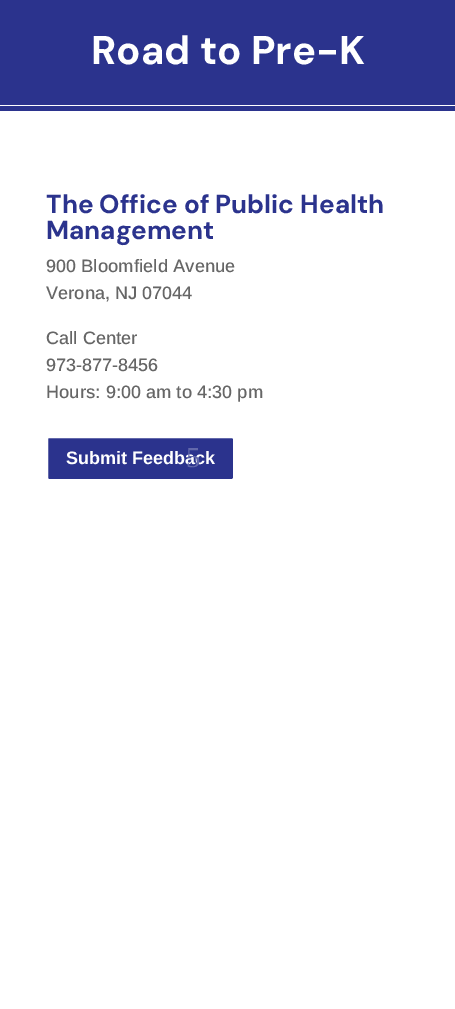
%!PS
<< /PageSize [455 1009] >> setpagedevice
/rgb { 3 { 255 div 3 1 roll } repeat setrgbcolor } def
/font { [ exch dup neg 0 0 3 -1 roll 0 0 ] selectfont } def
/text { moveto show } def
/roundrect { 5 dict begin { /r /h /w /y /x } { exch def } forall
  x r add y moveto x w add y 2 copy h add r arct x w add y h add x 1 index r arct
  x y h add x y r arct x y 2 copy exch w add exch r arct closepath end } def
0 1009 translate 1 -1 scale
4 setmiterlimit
255 255 255 rgb
0 0 455 1009 rectfill
43 51 141 rgb
0 0 455 105 rectfill
0 106 455 5 rectfill
47 437 187 43 2 roundrect gsave fill grestore
255 255 255 rgb
2 setlinewidth
stroke
/DMSans-Bold 40 font
(Road to Pre-K) 91 64 text
/DMSans-Bold 26 font
43 51 141 rgb
(The Office of Public Health) 46 213 text
(Management) 46 239 text
/Arimo-Medium 18 font
102 102 102 rgb
(900 Bloomfield Avenue) 46 272 text
(Verona, NJ 07044) 46 299 text
(Call Center) 46 344 text
(973-877-8456) 46 371 text
(Hours: 9:00 am to 4:30 pm) 46 398 text
/Arimo-Bold 18 font
255 255 255 rgb
(Submit Feedback) 66 464 text
/LiberationSerif-Regular 29 font
98 104 171 rgb
(5) 186 467 text
showpage
